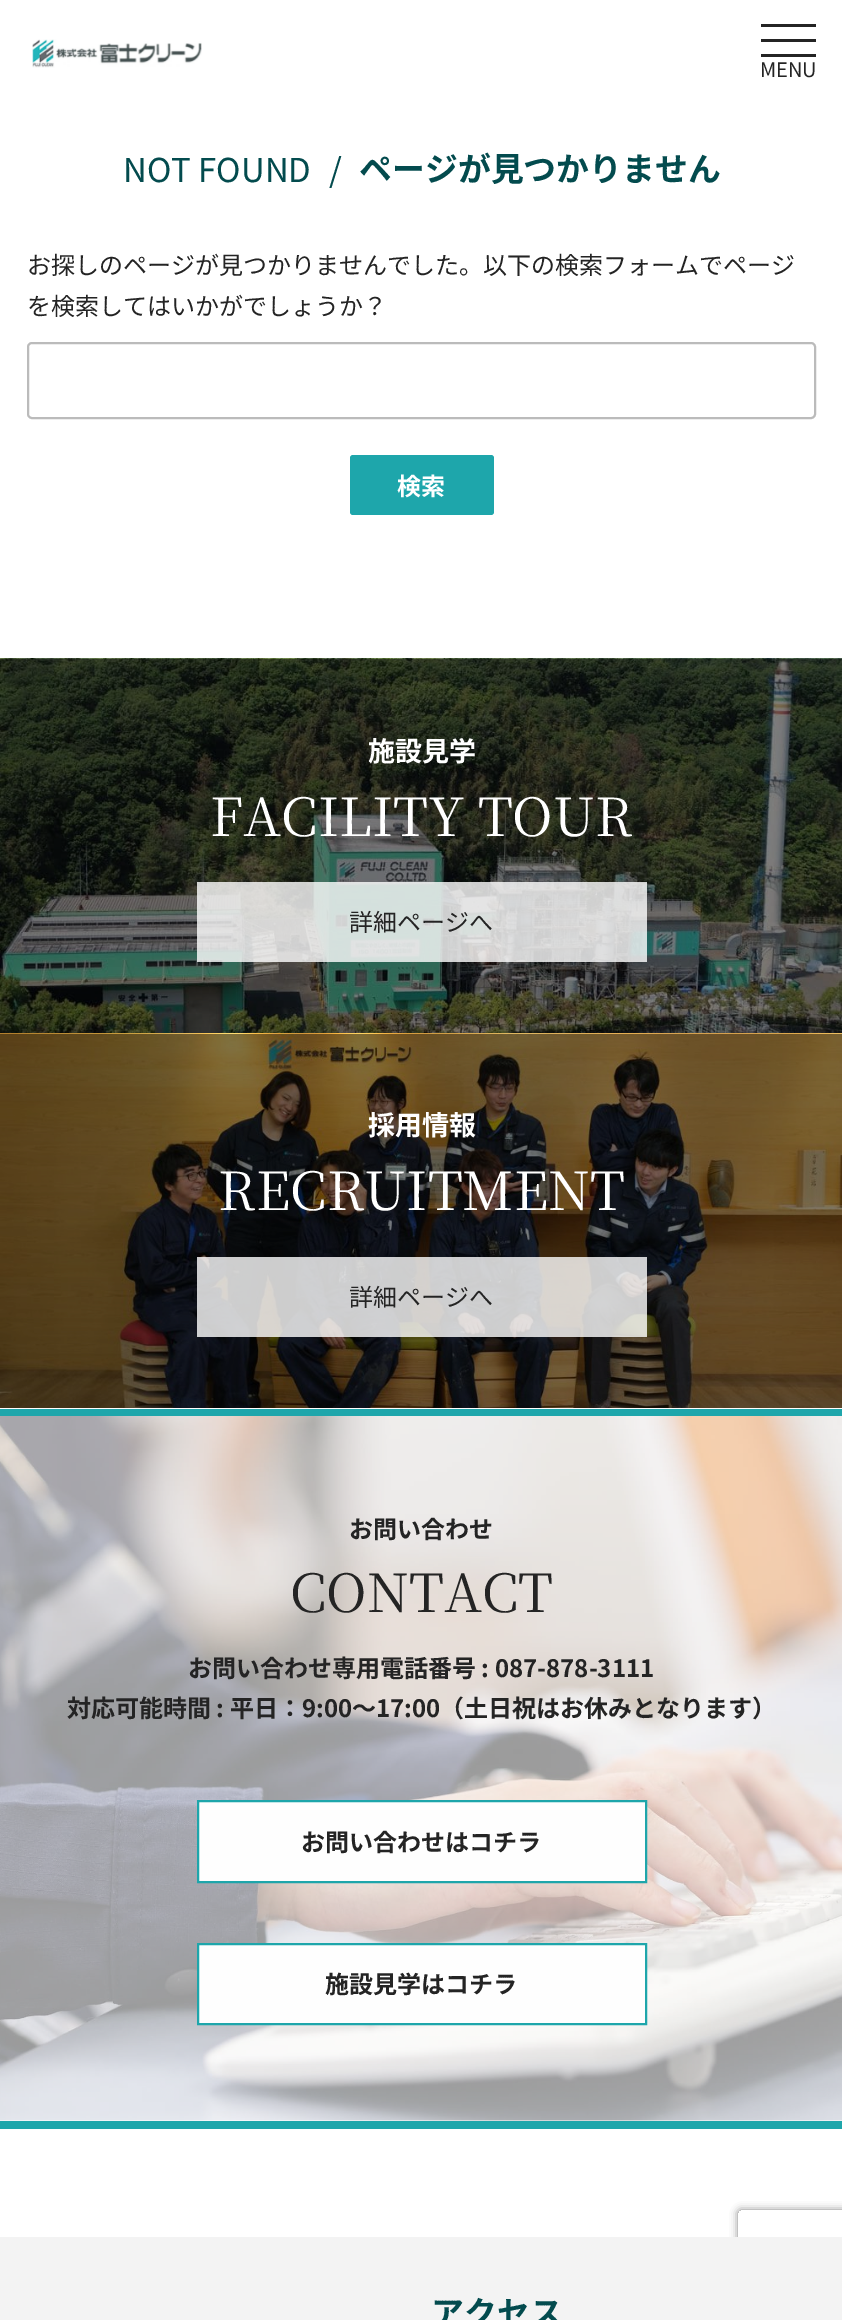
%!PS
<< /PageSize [842 2320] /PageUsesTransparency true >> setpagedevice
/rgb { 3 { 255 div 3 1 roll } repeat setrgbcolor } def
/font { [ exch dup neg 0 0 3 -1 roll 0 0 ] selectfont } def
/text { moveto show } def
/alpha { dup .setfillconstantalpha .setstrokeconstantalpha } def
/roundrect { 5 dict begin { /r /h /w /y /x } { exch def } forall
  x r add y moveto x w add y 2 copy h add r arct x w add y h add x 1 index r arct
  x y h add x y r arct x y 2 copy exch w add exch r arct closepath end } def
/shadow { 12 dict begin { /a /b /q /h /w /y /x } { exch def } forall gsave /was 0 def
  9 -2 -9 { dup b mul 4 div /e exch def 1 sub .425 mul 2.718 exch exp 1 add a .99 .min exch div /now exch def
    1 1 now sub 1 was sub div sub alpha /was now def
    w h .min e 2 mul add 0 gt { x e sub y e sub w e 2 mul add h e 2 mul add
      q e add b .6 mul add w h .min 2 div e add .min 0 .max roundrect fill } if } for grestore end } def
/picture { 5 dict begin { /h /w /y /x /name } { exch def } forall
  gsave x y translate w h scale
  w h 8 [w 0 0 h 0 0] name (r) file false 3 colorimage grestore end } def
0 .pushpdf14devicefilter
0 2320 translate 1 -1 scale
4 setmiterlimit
255 255 255 rgb
0 0 842 2320 rectfill
(img_01.rgb) 32 39 170 29 picture
36 36 36 rgb
761 24 55 3 rectfill
761 39 55 3 rectfill
761 54 55 3 rectfill
187 187 187 rgb
2 setlinewidth
28 343 787 75 4 roundrect stroke
30 166 171 rgb
350 455 144 60 3 roundrect fill
(img_02.rgb) 0 658 842 375 picture
0.8 alpha
255 255 255 rgb
197 882 450 80 rectfill
1 alpha
(img_03.rgb) 0 1033 842 375 picture
0.8 alpha
197 1257 450 80 rectfill
1 alpha
(img_04.rgb) 0 1416 842 705 picture
30 166 171 rgb
0 1409 842 7 rectfill
0 2121 842 8 rectfill
254 254 254 rgb
198 1801 moveto 448 0 rlineto 0 81 rlineto -448 0 rlineto closepath gsave fill grestore
30 166 171 rgb
stroke
254 254 254 rgb
198 1944 moveto 448 0 rlineto 0 80 rlineto -448 0 rlineto closepath gsave fill grestore
30 166 171 rgb
stroke
gsave
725 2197 moveto 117 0 rlineto 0 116 rlineto -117 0 rlineto closepath 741 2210 moveto 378 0 rlineto 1.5 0 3 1.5 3 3 rcurveto 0 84 rlineto 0 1.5 -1.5 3 -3 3 rcurveto -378 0 rlineto -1.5 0 -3 -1.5 -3 -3 rcurveto 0 -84 rlineto 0 -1.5 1.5 -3 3 -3 rcurveto closepath eoclip newpath
128 128 128 rgb
738 2210 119 90 3 4 1 shadow
grestore
243 243 243 rgb
0 2237 842 83 rectfill
/NotoSansJP-Regular 20 font
36 36 36 rgb
(MENU) 760 77 text
/NotoSansJP-Regular 32.9 font
3 75 78 rgb
(NOT FOUND) 123 182 text
(/) 329 182 text
/NotoSansJP-Bold 32.9 font
(ページが見つかりません) 359 181 text
/NotoSansJP-Regular 24 font
36 36 36 rgb
(お探しのページが見つかりませんでした。以下の検索フォームでページ) 27 274 text
(を検索してはいかがでしょうか？) 27 315 text
/NotoSansJP-Bold 24 font
255 255 255 rgb
(検索) 397 495 text
/NotoSansJP-Bold 27 font
(施設見学) 368 761 text
/NotoSerifJP-Regular 52.75 font
(FACILITY TOUR) 210 836 text
/NotoSansJP-Regular 24 font
36 36 36 rgb
(詳細ページへ) 349 931 text
/NotoSansJP-Bold 27 font
255 255 255 rgb
(採用情報) 368 1135 text
/NotoSerifJP-Regular 52.75 font
(RECRUITMENT) 218 1210 text
/NotoSansJP-Regular 24 font
36 36 36 rgb
(詳細ページへ) 349 1306 text
/NotoSansJP-Bold 24 font
(お問い合わせ) 349 1538 text
/NotoSerifJP-Regular 52.75 font
(CONTACT) 290 1612 text
/NotoSansJP-Bold 24 font
(お問い合わせ専用電話番号 : 087-878-3111) 188 1677 text
(対応可能時間 : 平日：9:00〜17:00（土日祝はお休みとなります）) 67 1717 text
(お問い合わせはコチラ) 301 1851 text
(施設見学はコチラ) 325 1993 text
/NotoSansJP-Bold 32.9 font
3 75 78 rgb
(アクセス) 431 2325 text
.poppdf14devicefilter showpage
